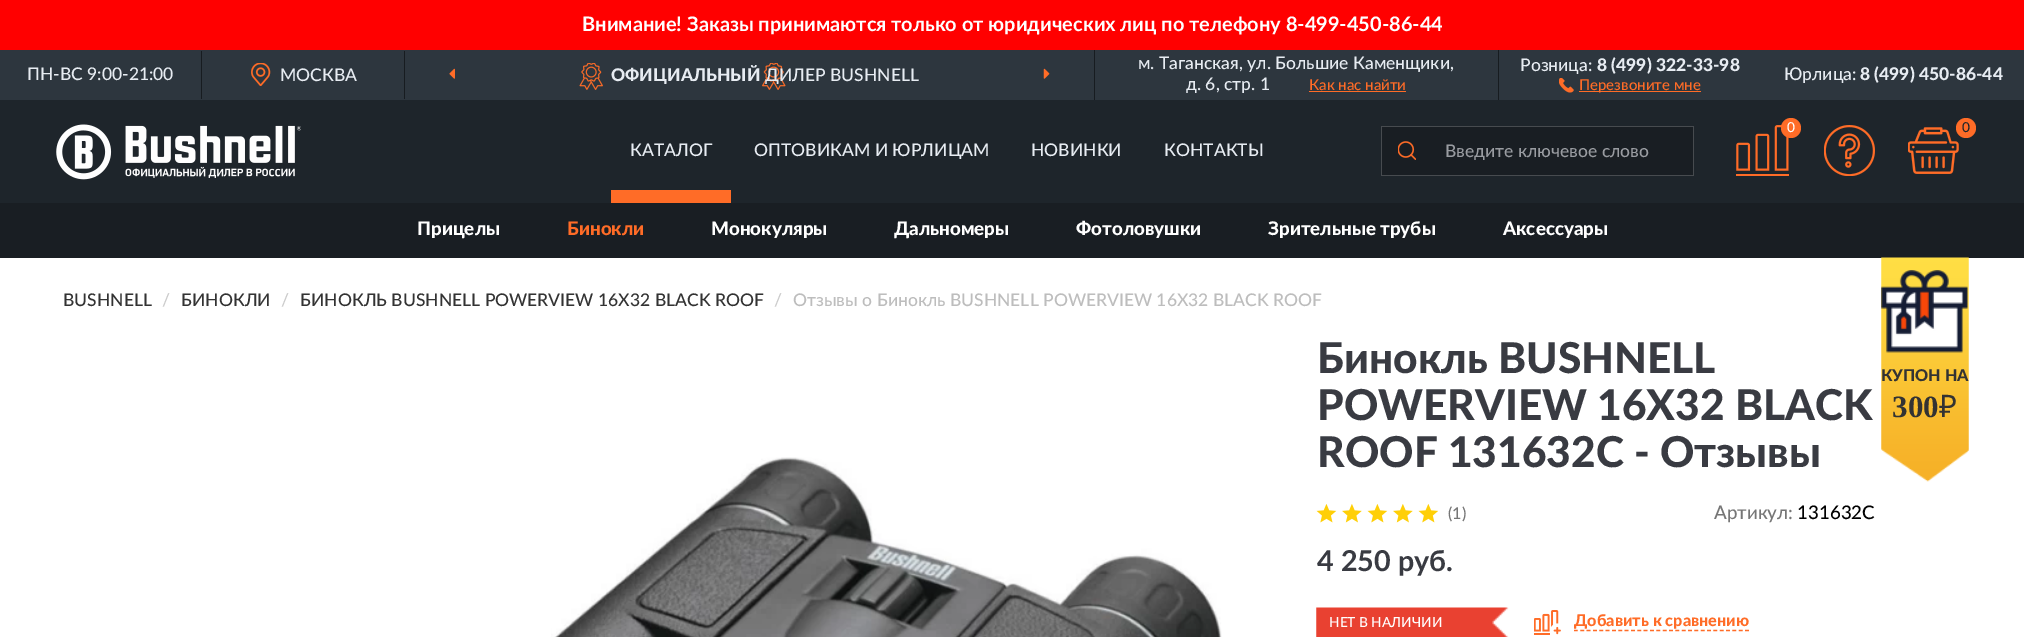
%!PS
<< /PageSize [2024 637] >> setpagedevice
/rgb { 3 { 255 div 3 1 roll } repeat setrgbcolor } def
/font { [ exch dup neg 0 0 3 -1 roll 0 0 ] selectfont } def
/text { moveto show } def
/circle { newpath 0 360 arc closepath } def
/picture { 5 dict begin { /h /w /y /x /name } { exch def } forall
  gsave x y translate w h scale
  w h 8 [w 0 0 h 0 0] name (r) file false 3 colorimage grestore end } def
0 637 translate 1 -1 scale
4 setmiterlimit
255 255 255 rgb
0 0 2024 637 rectfill
255 0 0 rgb
0 0 2024 50 rectfill
45 54 62 rgb
0 50 2024 50 rectfill
23 28 32 rgb
201 51 1 48 rectfill
404 51 1 48 rectfill
(img_01.rgb) 251 63 20 23 picture
(img_02.rgb) 579 63 207 27 picture
(img_03.rgb) 449 68 6 11 picture
(img_04.rgb) 1043 68 7 11 picture
1498 50 1 50 rectfill
1094 50 1 50 rectfill
255 108 39 rgb
1309 91 97 1 rectfill
(img_05.rgb) 1559 78 15 15 picture
1579 91 122 1 rectfill
30 37 43 rgb
0 100 2024 103 rectfill
(img_06.rgb) 56 124 245 56 picture
255 108 39 rgb
611 190 120 13 rectfill
25 30 35 rgb
1382 127 311 48 rectfill
(img_07.rgb) 1398 141 18 19 picture
71 75 79 rgb
1381 126 313 1 rectfill
1381 175 50 1 rectfill
1381 126 1 50 rectfill
1693 126 1 50 rectfill
1430 175 264 1 rectfill
(img_08.rgb) 1736 125 53 51 picture
255 108 39 rgb
1791 128 10 circle fill
(img_09.rgb) 1824 125 51 51 picture
(img_10.rgb) 1908 127 51 47 picture
1966 128 10 circle fill
25 30 35 rgb
0 203 2024 55 rectfill
(img_11.rgb) 1881 257 88 225 picture
(img_12.rgb) 1881 270 87 83 picture
(img_13.rgb) 551 457 671 180 picture
(img_14.rgb) 1316 504 122 19 picture
(img_15.rgb) 1316 607 193 30 picture
(img_16.rgb) 1534 610 27 25 picture
255 108 39 rgb
1.2 setlinewidth
[3.75 2.59] 0 setdash
1574 630.5 moveto 175 0 rlineto stroke
/Lato-Bold 20 font
255 255 255 rgb
(Внимание! Заказы принимаются только от юридических лиц по телефону 8-499-450-86-44) 582 31 text
/Lato-Medium 17.5 font
231 236 242 rgb
(ПН-ВС 9:00-21:00) 27 80 text
(МОСКВА) 280 81 text
/Lato-Black 17.5 font
(ОФИЦИАЛЬНЫЙ) 611 81 text
/Lato-Medium 17.5 font
(ДИЛЕР BUSHNELL) 765 81 text
(м. Таганская, ул. Большие Каменщики,) 1138 69 text
(д. 6, стр. 1) 1186 90 text
/Lato-Medium 15 font
255 108 39 rgb
(Как нас найти) 1309 90 text
/Lato-Medium 17.5 font
231 236 242 rgb
(Розница:) 1520 71 text
/Lato-Black 17.5 font
(8 \(499\) 322-33-98) 1597 71 text
/Lato-Medium 15 font
255 108 39 rgb
(Перезвоните мне) 1579 90 text
/Lato-Medium 17.5 font
231 236 242 rgb
(Юрлица:) 1784 80 text
/Lato-Black 17.5 font
(8 \(499\) 450-86-44) 1860 80 text
/Lato-Medium 17.5 font
(КАТАЛОГ) 630 156 text
(ОПТОВИКАМ И ЮРЛИЦАМ) 754 156 text
(НОВИНКИ) 1031 156 text
(КОНТАКТЫ) 1164 156 text
153 156 161 rgb
(Введите ключевое слово) 1445 157 text
/Lato-Medium 13.75 font
255 255 255 rgb
(0) 1787 132 text
30 37 43 rgb
(0) 1962 132 text
/Lato-Black 18.75 font
255 255 255 rgb
(Прицелы) 417 235 text
255 108 39 rgb
(Бинокли) 567 235 text
255 255 255 rgb
(Монокуляры) 711 235 text
(Дальномеры) 894 235 text
(Фотоловушки) 1076 235 text
(Зрительные трубы) 1268 235 text
(Аксессуары) 1503 235 text
/Lato-Black 16.25 font
51 51 51 rgb
(КУПОН НА) 1881 381 text
/LiberationSerif-Bold 31 font
(300) 1892 417 text
/NotoSans-Regular 31 font
(₽) 1939 417 text
/Lato-Medium 17.5 font
(BUSHNELL) 63 306 text
204 204 204 rgb
(/) 162 306 text
51 51 51 rgb
(БИНОКЛИ) 181 306 text
204 204 204 rgb
(/) 281 306 text
51 51 51 rgb
(БИНОКЛЬ BUSHNELL POWERVIEW 16X32 BLACK ROOF) 300 306 text
204 204 204 rgb
(/) 774 306 text
189 189 189 rgb
(Отзывы о Бинокль BUSHNELL POWERVIEW 16X32 BLACK ROOF) 793 306 text
/Lato-Black 42.5 font
57 59 66 rgb
(Бинокль BUSHNELL) 1317 373 text
(POWERVIEW 16X32 BLACK) 1317 420 text
(ROOF 131632C - Отзывы) 1317 467 text
/Lato-Medium 16.25 font
118 118 118 rgb
(\(1\)) 1448 519 text
/Lato-Medium 18.75 font
(Артикул:) 1714 519 text
1 1 1 rgb
(131632C) 1797 519 text
/Lato-Bold 28.75 font
57 59 66 rgb
(4 250 руб.) 1317 571 text
/Lato-Medium 13.75 font
255 255 255 rgb
(НЕТ В НАЛИЧИИ) 1329 627 text
/Lato-Black 16.25 font
255 108 39 rgb
(Добавить к сравнению) 1574 626 text
showpage
